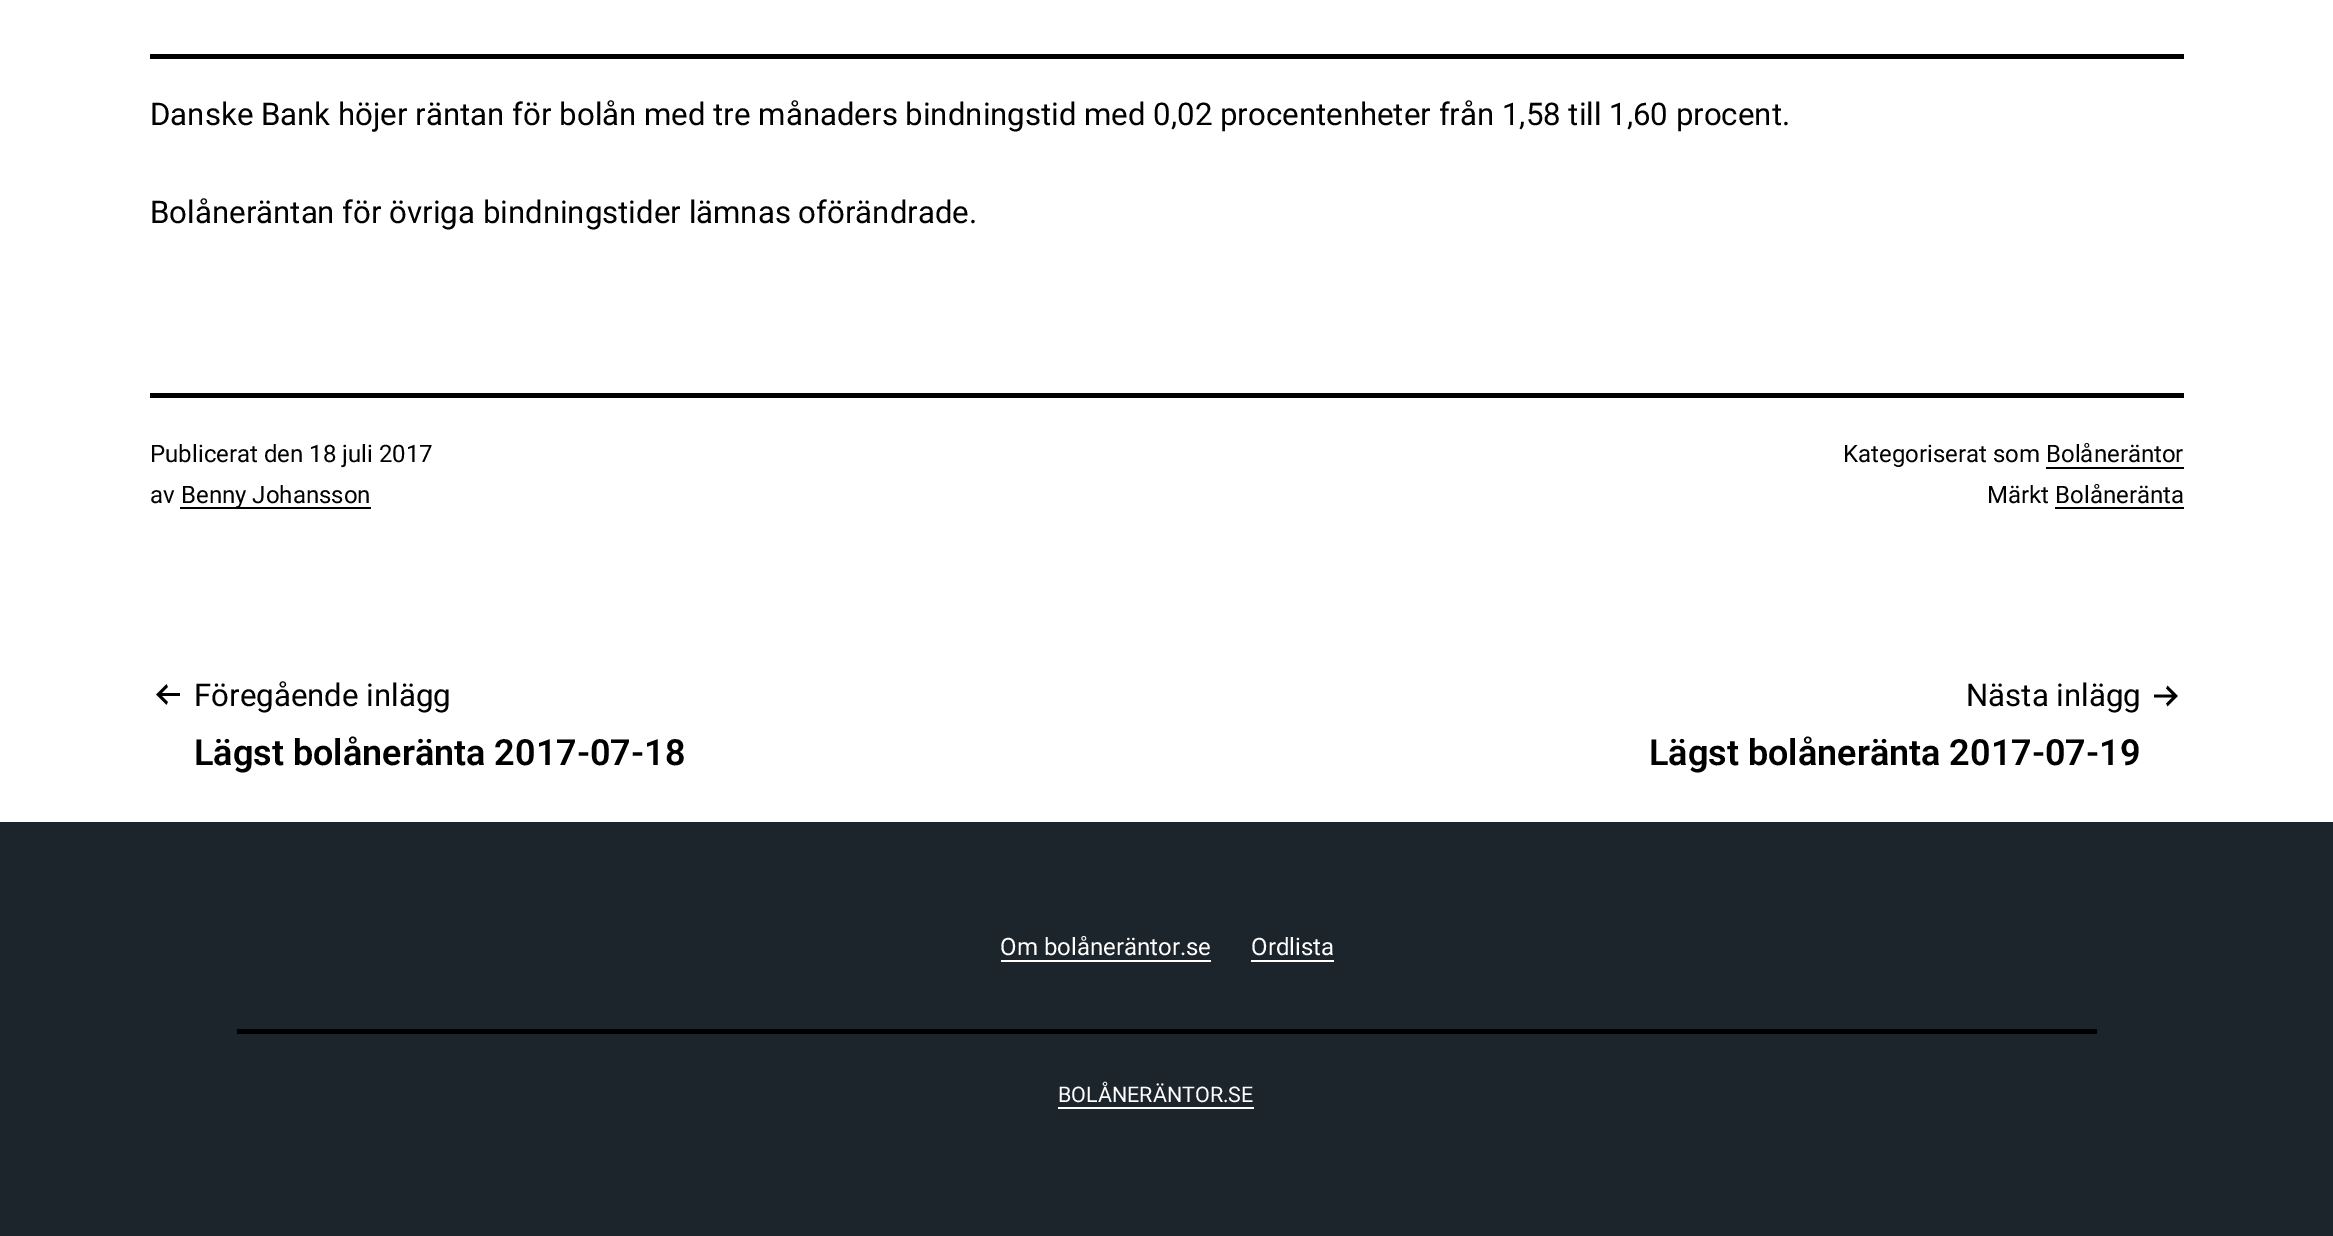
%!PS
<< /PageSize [2333 1236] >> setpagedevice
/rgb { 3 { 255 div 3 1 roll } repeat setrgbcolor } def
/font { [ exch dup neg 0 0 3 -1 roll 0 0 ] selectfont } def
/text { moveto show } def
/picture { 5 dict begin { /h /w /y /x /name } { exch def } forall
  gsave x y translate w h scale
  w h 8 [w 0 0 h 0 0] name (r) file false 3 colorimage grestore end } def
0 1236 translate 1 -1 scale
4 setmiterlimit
255 255 255 rgb
0 0 2333 1236 rectfill
0 0 0 rgb
150 54 2034 5 rectfill
150 393 2034 5 rectfill
180 507 191 2 rectfill
2046 467 138 2 rectfill
2055 507 129 2 rectfill
(img_01.rgb) 156 684 24 21 picture
(img_02.rgb) 2154 685 24 22 picture
29 37 44 rgb
0 822 2333 414 rectfill
255 255 255 rgb
1001 960 210 2 rectfill
1251 960 83 2 rectfill
0 0 0 rgb
237 1029 1860 5 rectfill
255 255 255 rgb
1058 1107 196 2 rectfill
/Roboto-Regular 31.2 font
0 0 0 rgb
(Danske Bank höjer räntan för bolån med tre månaders bindningstid med 0,02 procentenheter från 1,58 till 1,60 procent.) 150 125 text
(Bolåneräntan för övriga bindningstider lämnas oförändrade.) 150 223 text
/Roboto-Regular 24 font
(Publicerat den 18 juli 2017) 150 462 text
(av) 150 503 text
(Benny Johansson) 181 503 text
(Kategoriserat som Bolåneräntor) 1843 462 text
(Märkt Bolåneränta) 1987 503 text
/Roboto-Regular 31.2 font
(Föregående inlägg) 194 706 text
/Roboto-SemiBold 36 font
(Lägst bolåneränta 2017-07-18) 194 765 text
/Roboto-Regular 31.2 font
(Nästa inlägg) 1966 706 text
/Roboto-SemiBold 36 font
(Lägst bolåneränta 2017-07-19) 1649 765 text
/Roboto-Regular 24 font
255 255 255 rgb
(Om bolåneräntor.se) 1000 955 text
(Ordlista) 1251 955 text
/Roboto-Regular 21.5 font
(BOLÅNERÄNTOR.SE) 1058 1102 text
showpage
